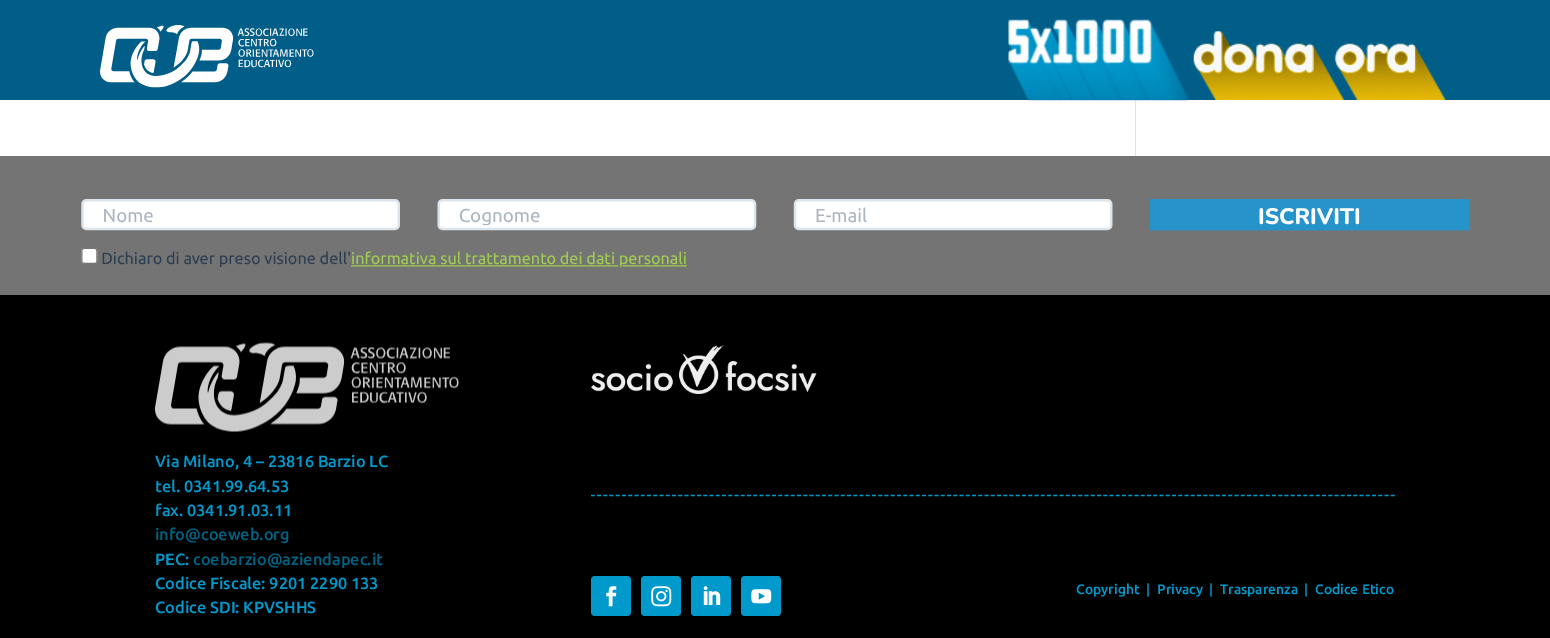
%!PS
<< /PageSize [1550 638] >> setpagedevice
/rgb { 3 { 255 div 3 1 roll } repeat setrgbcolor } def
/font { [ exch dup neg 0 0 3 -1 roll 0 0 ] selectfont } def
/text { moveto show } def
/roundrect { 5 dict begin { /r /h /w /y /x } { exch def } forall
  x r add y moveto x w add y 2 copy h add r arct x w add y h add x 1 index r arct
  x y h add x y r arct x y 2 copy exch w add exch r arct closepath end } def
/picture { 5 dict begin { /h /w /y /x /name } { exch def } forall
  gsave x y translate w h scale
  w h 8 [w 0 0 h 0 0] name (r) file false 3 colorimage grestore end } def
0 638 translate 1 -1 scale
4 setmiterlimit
255 255 255 rgb
0 0 1550 638 rectfill
0 94 137 rgb
0 0 1550 100 rectfill
(img_01.rgb) 100 25 214 63 picture
226 226 226 rgb
1135 100 1 56 rectfill
(img_02.rgb) 1007 19 182 82 picture
(img_03.rgb) 1193 31 254 69 picture
116 116 116 rgb
0 156 1550 139 rectfill
(img_04.rgb) 81 199 1388 68 picture
0 0 0 rgb
0 295 1550 343 rectfill
(img_05.rgb) 155 342 304 90 picture
0 153 204 rgb
1.2 setlinewidth
[3.75 2.5] 0 setdash
591 495.5 moveto 804 0 rlineto stroke
(img_06.rgb) 591 345 226 49 picture
591 576 40 40 4 roundrect fill
(img_07.rgb) 606 586 11 21 picture
641 576 40 40 4 roundrect fill
(img_08.rgb) 651 586 21 21 picture
691 576 40 40 4 roundrect fill
(img_09.rgb) 703 586 18 19 picture
741 576 40 40 4 roundrect fill
(img_10.rgb) 751 589 21 15 picture
/Ubuntu-Medium 16.25 font
(Via Milano, 4 – 23816 Barzio LC) 155 467 text
(tel. 0341.99.64.53) 155 492 text
(fax. 0341.91.03.11) 155 516 text
0 98 130 rgb
(info@coeweb.org) 155 540 text
0 153 204 rgb
(PEC:) 155 565 text
0 98 130 rgb
(coebarzio@aziendapec.it) 193 565 text
0 153 204 rgb
(Codice Fiscale: 9201 2290 133) 155 589 text
(Codice SDI: KPVSHHS) 155 613 text
/Ubuntu-Medium 13.75 font
(Copyright) 1076 594 text
(|) 1146 594 text
(Privacy) 1157 594 text
(|) 1209 594 text
(Trasparenza) 1220 594 text
(|) 1304 594 text
(Codice Etico) 1315 594 text
showpage
